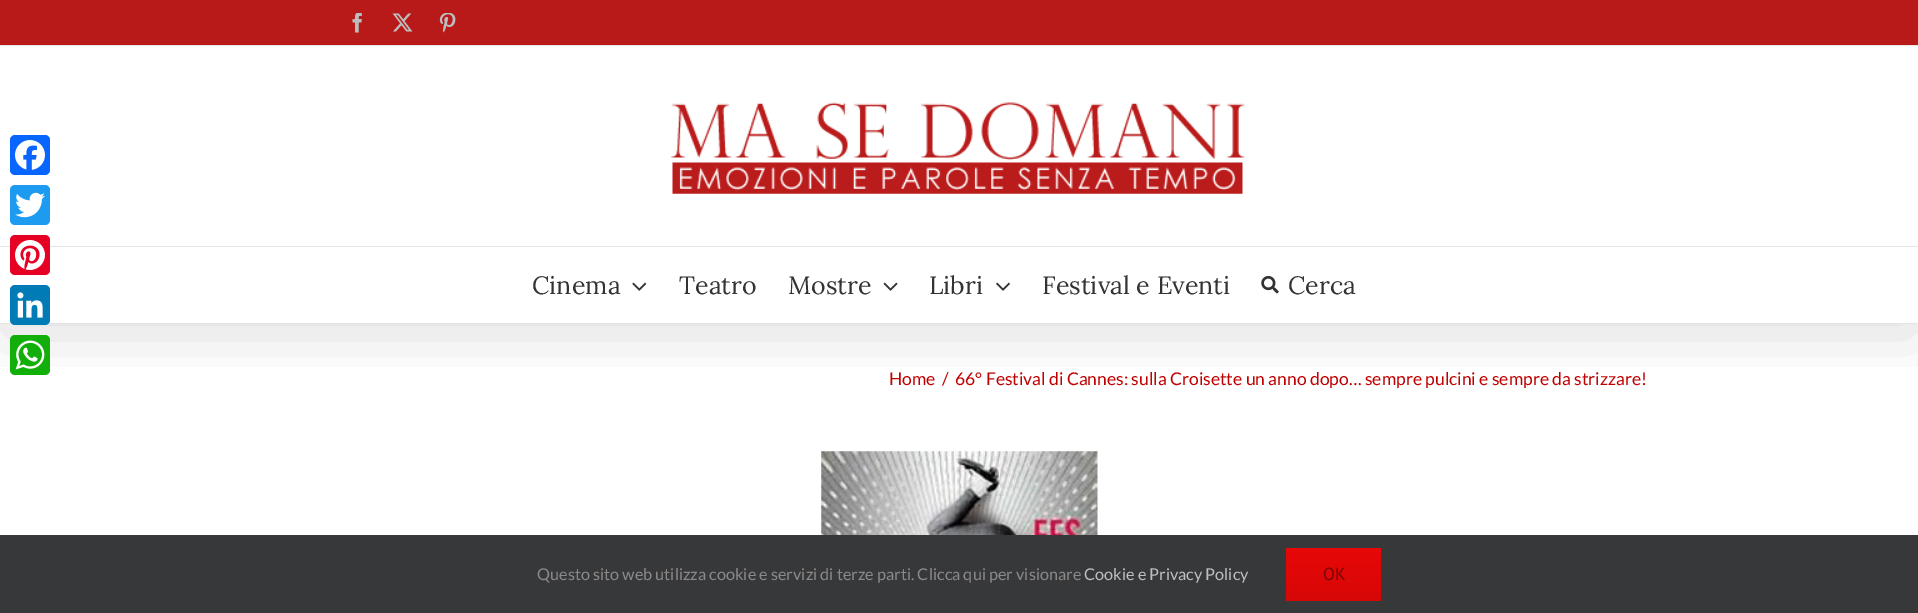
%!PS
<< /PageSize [1918 613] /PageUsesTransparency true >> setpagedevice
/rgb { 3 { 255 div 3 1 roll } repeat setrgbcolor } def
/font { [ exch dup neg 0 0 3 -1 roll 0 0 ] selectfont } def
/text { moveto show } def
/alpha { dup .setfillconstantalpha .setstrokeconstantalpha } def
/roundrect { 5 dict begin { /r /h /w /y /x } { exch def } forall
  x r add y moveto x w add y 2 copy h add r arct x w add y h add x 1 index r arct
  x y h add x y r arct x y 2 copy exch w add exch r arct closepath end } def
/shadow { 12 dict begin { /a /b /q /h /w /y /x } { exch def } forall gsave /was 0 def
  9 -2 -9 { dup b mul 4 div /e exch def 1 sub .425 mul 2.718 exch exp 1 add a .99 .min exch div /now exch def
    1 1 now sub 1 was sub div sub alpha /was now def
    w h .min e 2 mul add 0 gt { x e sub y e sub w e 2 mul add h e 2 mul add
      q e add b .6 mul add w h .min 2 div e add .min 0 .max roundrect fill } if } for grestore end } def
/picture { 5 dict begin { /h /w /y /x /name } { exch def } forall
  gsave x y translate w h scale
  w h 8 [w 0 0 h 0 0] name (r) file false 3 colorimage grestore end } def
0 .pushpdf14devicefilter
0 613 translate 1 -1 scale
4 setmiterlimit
255 255 255 rgb
0 0 1918 613 rectfill
gsave
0 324 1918 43 rectclip
0 0 0 rgb
3 15 1913 319 0 31 0.14 shadow
grestore
184 25 25 rgb
0 0 1918 45 rectfill
229 229 229 rgb
0 45 1918 1 rectfill
(img_01.rgb) 352 13 10 20 picture
(img_02.rgb) 392 13 21 19 picture
(img_03.rgb) 439 13 17 20 picture
0 246 1918 1 rectfill
(img_04.rgb) 671 102 574 92 picture
0 323 1918 1 rectfill
(img_05.rgb) 632 282 15 9 picture
(img_06.rgb) 883 282 15 9 picture
(img_07.rgb) 996 282 14 9 picture
(img_08.rgb) 1261 275 18 19 picture
(img_09.rgb) 821 451 277 84 picture
8 102 255 rgb
10 135 40 40 5 roundrect fill
(img_10.rgb) 15 140 30 30 picture
29 155 240 rgb
10 185 40 40 5 roundrect fill
(img_11.rgb) 15 192 30 26 picture
230 0 35 rgb
10 235 40 40 5 roundrect fill
(img_12.rgb) 15 240 30 30 picture
0 123 181 rgb
10 285 40 40 5 roundrect fill
(img_13.rgb) 17 292 26 26 picture
18 175 10 rgb
10 335 40 40 5 roundrect fill
(img_14.rgb) 15 340 30 30 picture
54 56 57 rgb
0 535 1918 78 rectfill
gsave 1286 548 95 53 2.5 roundrect clip newpath
<< /ShadingType 2 /ColorSpace /DeviceRGB /Coords [1334 548 1334 601] /Extend [true true] /Function << /FunctionType 2 /Domain [0 1] /C0 [0.91 0.027 0.027] /C1 [0.839 0.027 0.027] /N 1 >> >> shfill grestore
/Lora-Regular 25 font
51 51 51 rgb
(Cinema) 532 294 text
(Teatro) 679 294 text
(Mostre) 788 294 text
(Libri) 929 294 text
(Festival e Eventi) 1042 294 text
(Cerca) 1288 294 text
/Lato-Regular 17.5 font
191 0 0 rgb
(Home) 889 385 text
(/) 942 385 text
(66° Festival di Cannes: sulla Croisette un anno dopo… sempre pulcini e sempre da strizzare!) 955 385 text
/Lato-Regular 16.25 font
140 137 137 rgb
(Questo sito web utilizza cookie e servizi di terze parti. Clicca qui per visionare) 537 580 text
191 191 191 rgb
(Cookie e Privacy Policy) 1084 580 text
/PTSans-Regular 17.5 font
120 4 4 rgb
(OK) 1323 580 text
.poppdf14devicefilter showpage
